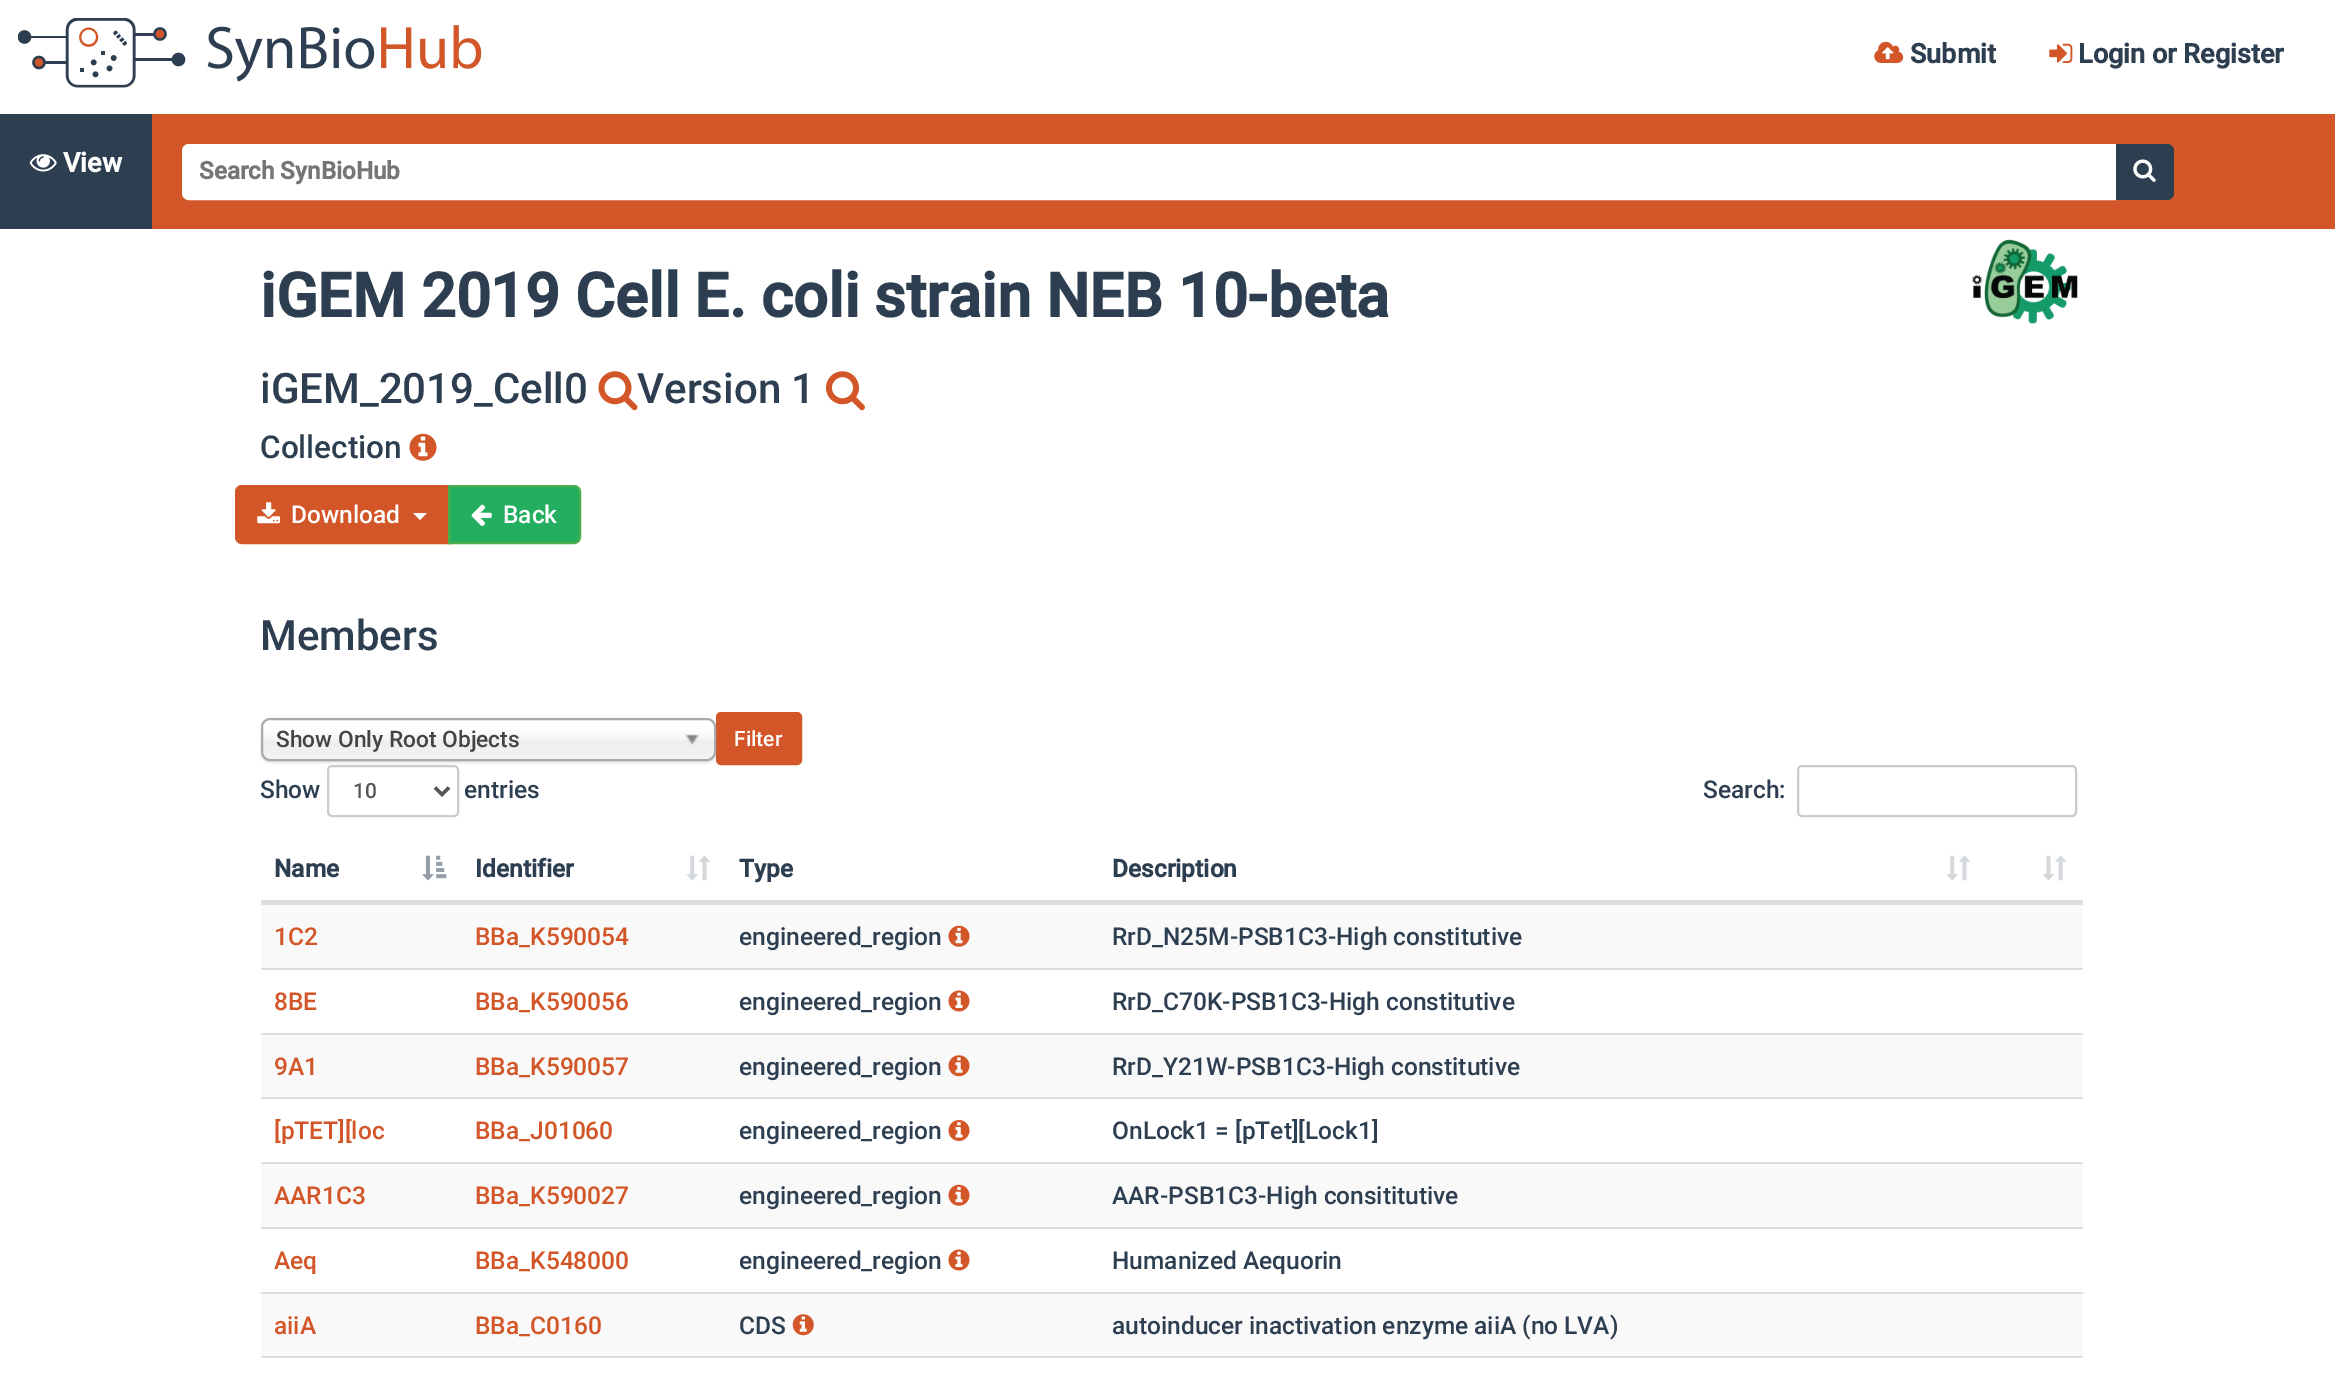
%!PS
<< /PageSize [2335 1375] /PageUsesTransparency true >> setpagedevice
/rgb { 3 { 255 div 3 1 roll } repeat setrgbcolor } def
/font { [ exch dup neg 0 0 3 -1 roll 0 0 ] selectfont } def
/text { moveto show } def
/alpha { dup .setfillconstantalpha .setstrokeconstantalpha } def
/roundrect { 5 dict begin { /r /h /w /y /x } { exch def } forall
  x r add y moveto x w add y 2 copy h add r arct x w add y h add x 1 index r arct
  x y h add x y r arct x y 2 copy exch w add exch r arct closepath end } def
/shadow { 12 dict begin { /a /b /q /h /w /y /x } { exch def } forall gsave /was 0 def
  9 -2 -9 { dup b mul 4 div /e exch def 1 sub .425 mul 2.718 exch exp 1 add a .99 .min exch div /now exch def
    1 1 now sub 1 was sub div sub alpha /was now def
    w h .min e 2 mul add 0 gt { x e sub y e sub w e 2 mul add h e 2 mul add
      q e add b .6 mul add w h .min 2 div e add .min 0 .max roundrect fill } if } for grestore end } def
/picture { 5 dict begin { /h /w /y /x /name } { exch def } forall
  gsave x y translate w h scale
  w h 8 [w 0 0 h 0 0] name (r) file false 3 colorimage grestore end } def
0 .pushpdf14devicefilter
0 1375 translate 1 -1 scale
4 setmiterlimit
255 255 255 rgb
0 0 2335 1375 rectfill
(img_01.rgb) 18 18 464 70 picture
(img_02.rgb) 1874 41 30 22 picture
(img_03.rgb) 2049 43 24 20 picture
210 86 39 rgb
152 114 2183 115 rectfill
44 62 80 rgb
0 114 152 115 rectfill
(img_04.rgb) 29 154 28 18 picture
255 255 255 rgb
189 145 moveto 1926 0 rlineto 0 54 rlineto -1926 0 rlineto -3.5 0 -6 -2.5 -6 -6 rcurveto 0 -42 rlineto 0 -3.5 2.5 -6 6 -6 rcurveto closepath gsave fill grestore
2 setlinewidth
stroke
44 62 80 rgb
2116 144 moveto 51 0 rlineto 4 0 7 3 7 7 rcurveto 0 42 rlineto 0 4 -3 7 -7 7 rcurveto -51 0 rlineto closepath fill
(img_05.rgb) 2133 159 23 23 picture
(img_06.rgb) 598 371 40 40 picture
(img_07.rgb) 826 371 39 40 picture
(img_08.rgb) 409 433 28 28 picture
(img_09.rgb) 1972 239 106 85 picture
210 86 39 rgb
242 486 moveto 207 0 rlineto 0 57 rlineto -207 0 rlineto -3.5 0 -6 -2.5 -6 -6 rcurveto 0 -45 rlineto 0 -3.5 2.5 -6 6 -6 rcurveto closepath gsave fill grestore
stroke
(img_10.rgb) 257 502 23 22 picture
255 255 255 rgb
413 513 moveto 14 0 rlineto -7 7 rlineto closepath fill
36 174 95 rgb
449 486 moveto 125 0 rlineto 3.5 0 6 2.5 6 6 rcurveto 0 45 rlineto 0 3.5 -2.5 6 -6 6 rcurveto -125 0 rlineto closepath gsave fill grestore
76 174 76 rgb
stroke
(img_11.rgb) 471 504 21 22 picture
210 86 39 rgb
717 713 84 51 4 roundrect gsave fill grestore
stroke
0 0 0 rgb
261 719 455 44 9 1 0.1 shadow
gsave 263 719 451 41 7 roundrect clip newpath
<< /ShadingType 2 /ColorSpace /DeviceRGB /Coords [488 719 488 760] /Extend [true true] /Function << /FunctionType 3 /Domain [0 1] /Functions [<< /FunctionType 2 /Domain [0 1] /C0 [1 1 1] /C1 [1 1 1] /N 1 >> << /FunctionType 2 /Domain [0 1] /C0 [1 1 1] /C1 [0.965 0.965 0.965] /N 1 >> << /FunctionType 2 /Domain [0 1] /C0 [0.965 0.965 0.965] /C1 [0.933 0.933 0.933] /N 1 >> << /FunctionType 2 /Domain [0 1] /C0 [0.933 0.933 0.933] /C1 [0.957 0.957 0.957] /N 1 >>] /Bounds [0.2 0.5 0.52] /Encode [0 1 0 1 0 1 0 1] >> >> shfill grestore
170 170 170 rgb
262 719 453 41 8 roundrect stroke
(img_12.rgb) 685 734 14 11 picture
204 204 204 rgb
328 766 130 50 4 roundrect stroke
85 85 85 rgb
3.5 setlinewidth
435 787.5 moveto 7 7 rlineto 7 -7 rlineto stroke
204 204 204 rgb
2 setlinewidth
1798 766 278 50 4 roundrect stroke
221 221 221 rgb
261 900 465 4 rectfill
(img_13.rgb) 422 855 25 26 picture
(img_14.rgb) 686 855 24 26 picture
726 900 373 5 rectfill
1099 900 984 4 rectfill
(img_14.rgb) 1946 855 24 26 picture
(img_15.rgb) 2043 855 24 26 picture
249 249 249 rgb
261 905 1822 63 rectfill
221 221 221 rgb
261 904 465 1 rectfill
(img_16.rgb) 948 925 22 22 picture
1099 904 984 1 rectfill
261 968 1822 2 rectfill
(img_17.rgb) 948 990 22 22 picture
249 249 249 rgb
261 1035 1822 62 rectfill
221 221 221 rgb
261 1033 1822 2 rectfill
(img_18.rgb) 948 1055 22 22 picture
261 1097 1822 2 rectfill
(img_19.rgb) 948 1120 22 21 picture
249 249 249 rgb
261 1164 1822 63 rectfill
221 221 221 rgb
261 1162 1822 2 rectfill
(img_16.rgb) 948 1184 22 22 picture
261 1227 1822 2 rectfill
(img_17.rgb) 948 1249 22 22 picture
249 249 249 rgb
261 1294 1822 62 rectfill
221 221 221 rgb
261 1292 1822 2 rectfill
(img_20.rgb) 792 1314 22 22 picture
261 1356 1822 2 rectfill
/Roboto-Bold 27 font
44 62 80 rgb
(Submit) 1910 63 text
(Login or Register) 2078 63 text
255 255 255 rgb
(View) 63 172 text
/Roboto-Bold 24.25 font
117 117 117 rgb
(Search SynBioHub) 199 179 text
/Roboto-Bold 61.25 font
44 62 80 rgb
(iGEM 2019 Cell E. coli strain NEB 10-beta) 260 317 text
/Roboto-Medium 42 font
(iGEM_2019_Cell0) 260 403 text
(Version 1) 637 403 text
/Roboto-Medium 31.5 font
(Collection) 260 458 text
/Roboto-Medium 24.5 font
255 255 255 rgb
(Download) 291 523 text
(Back) 503 523 text
/Roboto-Medium 42 font
44 62 80 rgb
(Members) 260 650 text
/Roboto-Medium 22.75 font
68 68 68 rgb
(Show Only Root Objects) 276 747 text
/Roboto-Medium 21 font
255 255 255 rgb
(Filter) 734 746 text
/Roboto-Medium 24.5 font
44 62 80 rgb
(Show) 260 798 text
/Roboto-Medium 21 font
85 85 85 rgb
(10) 353 798 text
/Roboto-Medium 24.5 font
44 62 80 rgb
(entries) 464 798 text
(Search:) 1703 798 text
/Roboto-Bold 24.5 font
(Name) 274 877 text
(Identifier) 475 877 text
(Type) 739 877 text
(Description) 1112 877 text
/Roboto-Medium 24.5 font
210 86 39 rgb
(1C2) 274 945 text
(BBa_K590054) 475 945 text
44 62 80 rgb
(engineered_region) 739 945 text
(RrD_N25M-PSB1C3-High constitutive) 1112 945 text
210 86 39 rgb
(8BE) 274 1010 text
(BBa_K590056) 475 1010 text
44 62 80 rgb
(engineered_region) 739 1010 text
(RrD_C70K-PSB1C3-High constitutive) 1112 1010 text
210 86 39 rgb
(9A1) 274 1075 text
(BBa_K590057) 475 1075 text
44 62 80 rgb
(engineered_region) 739 1075 text
(RrD_Y21W-PSB1C3-High constitutive) 1112 1075 text
210 86 39 rgb
([pTET][loc) 274 1139 text
(BBa_J01060) 475 1139 text
44 62 80 rgb
(engineered_region) 739 1139 text
(OnLock1 = [pTet][Lock1]) 1112 1139 text
210 86 39 rgb
(AAR1C3) 274 1204 text
(BBa_K590027) 475 1204 text
44 62 80 rgb
(engineered_region) 739 1204 text
(AAR-PSB1C3-High consititutive) 1112 1204 text
210 86 39 rgb
(Aeq) 274 1269 text
(BBa_K548000) 475 1269 text
44 62 80 rgb
(engineered_region) 739 1269 text
(Humanized Aequorin) 1112 1269 text
210 86 39 rgb
(aiiA) 274 1334 text
(BBa_C0160) 475 1334 text
44 62 80 rgb
(CDS) 739 1334 text
(autoinducer inactivation enzyme aiiA \(no LVA\)) 1112 1334 text
.poppdf14devicefilter showpage
